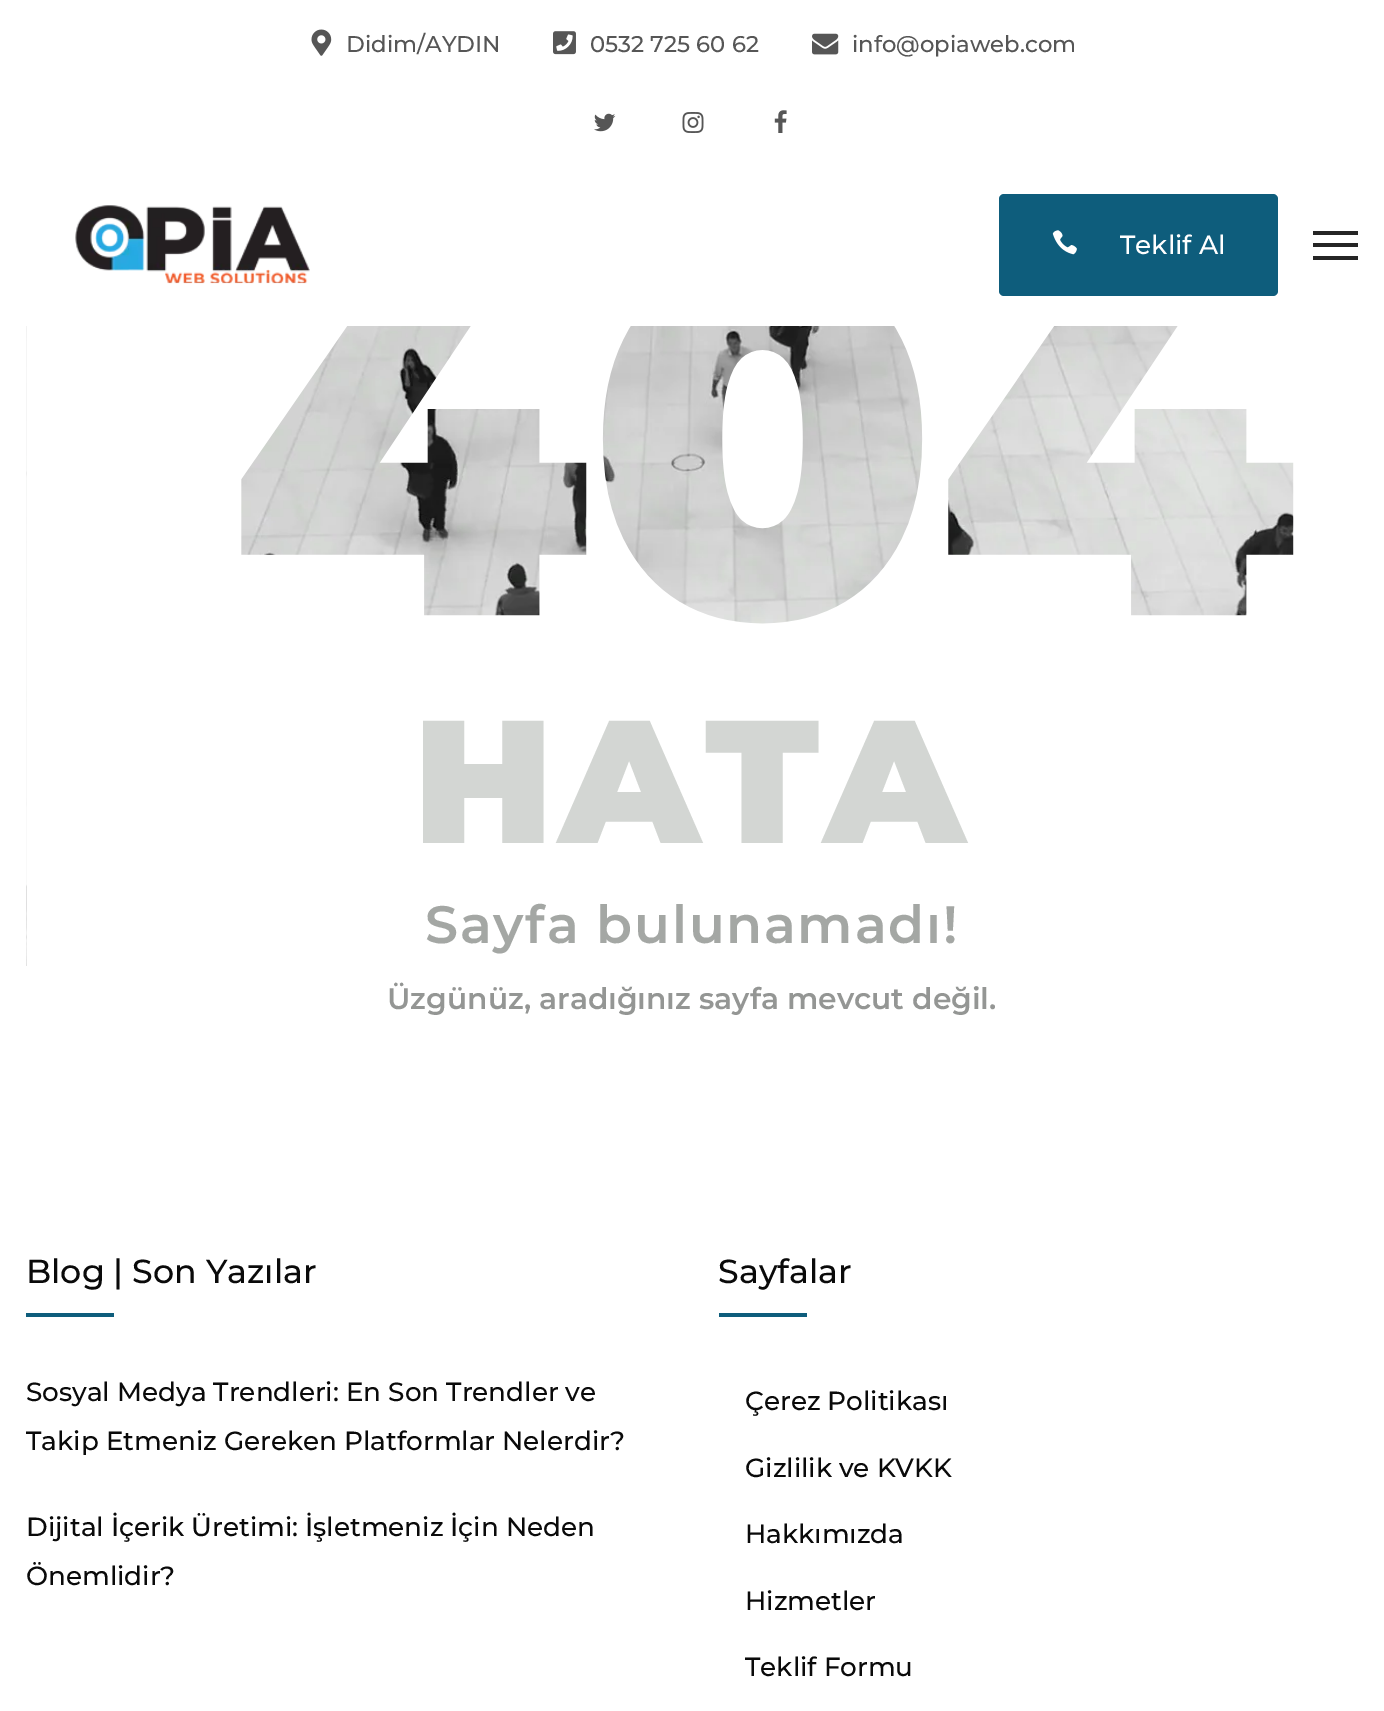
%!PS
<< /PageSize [1384 1711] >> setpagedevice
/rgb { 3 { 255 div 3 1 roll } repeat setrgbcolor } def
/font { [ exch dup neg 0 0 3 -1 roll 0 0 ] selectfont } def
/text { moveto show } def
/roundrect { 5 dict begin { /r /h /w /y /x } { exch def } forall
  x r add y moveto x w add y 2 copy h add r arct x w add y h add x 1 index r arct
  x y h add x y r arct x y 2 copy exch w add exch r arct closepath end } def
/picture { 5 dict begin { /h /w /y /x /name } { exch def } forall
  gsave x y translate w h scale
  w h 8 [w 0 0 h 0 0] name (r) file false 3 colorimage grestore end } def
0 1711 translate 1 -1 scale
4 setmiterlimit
255 255 255 rgb
0 0 1384 1711 rectfill
(img_01.rgb) 311 29 21 27 picture
(img_02.rgb) 553 31 23 24 picture
(img_03.rgb) 812 33 27 22 picture
(img_04.rgb) 594 113 22 19 picture
(img_05.rgb) 682 112 22 21 picture
(img_06.rgb) 774 110 13 23 picture
(img_07.rgb) 75 205 235 79 picture
14 93 124 rgb
999 194 279 102 5 roundrect fill
(img_08.rgb) 1052 230 25 25 picture
37 37 37 rgb
1313 231 45 4 rectfill
1313 243 45 4 rectfill
1313 256 45 4 rectfill
(img_09.rgb) 26 326 1268 640 picture
(img_10.rgb) 26 326 1332 640 picture
14 93 124 rgb
26 1313 88 4 rectfill
719 1313 88 4 rectfill
/Montserrat-Medium 22.75 font
86 86 86 rgb
(Didim/AYDIN) 346 52 text
(0532 725 60 62) 590 52 text
(info@opiaweb.com) 852 52 text
/Montserrat-Medium 26.25 font
255 255 255 rgb
(Teklif Al) 1120 254 text
/Montserrat-Black 175 font
211 214 211 rgb
413 843 moveto 5 0 (HATA) ashow
/Montserrat-SemiBold 52.5 font
164 167 164 rgb
425 943 moveto 1.75 0 (Sayfa bulunamadı!) ashow
/Montserrat-SemiBold 29.75 font
148 150 148 rgb
(Üzgünüz, aradığınız sayfa mevcut değil.) 387 1009 text
/Montserrat-Medium 33.25 font
10 10 10 rgb
(Blog | Son Yazılar) 26 1283 text
/Montserrat-Medium 26.25 font
(Sosyal Medya Trendleri: En Son Trendler ve) 26 1401 text
(Takip Etmeniz Gereken Platformlar Nelerdir?) 26 1450 text
(Dijital İçerik Üretimi: İşletmeniz İçin Neden) 26 1536 text
(Önemlidir?) 26 1585 text
/Montserrat-Medium 33.25 font
(Sayfalar) 718 1283 text
/Montserrat-Medium 26.25 font
(Çerez Politikası) 745 1410 text
(Gizlilik ve KVKK) 745 1477 text
(Hakkımızda) 745 1543 text
(Hizmetler) 745 1610 text
(Teklif Formu) 745 1676 text
showpage
